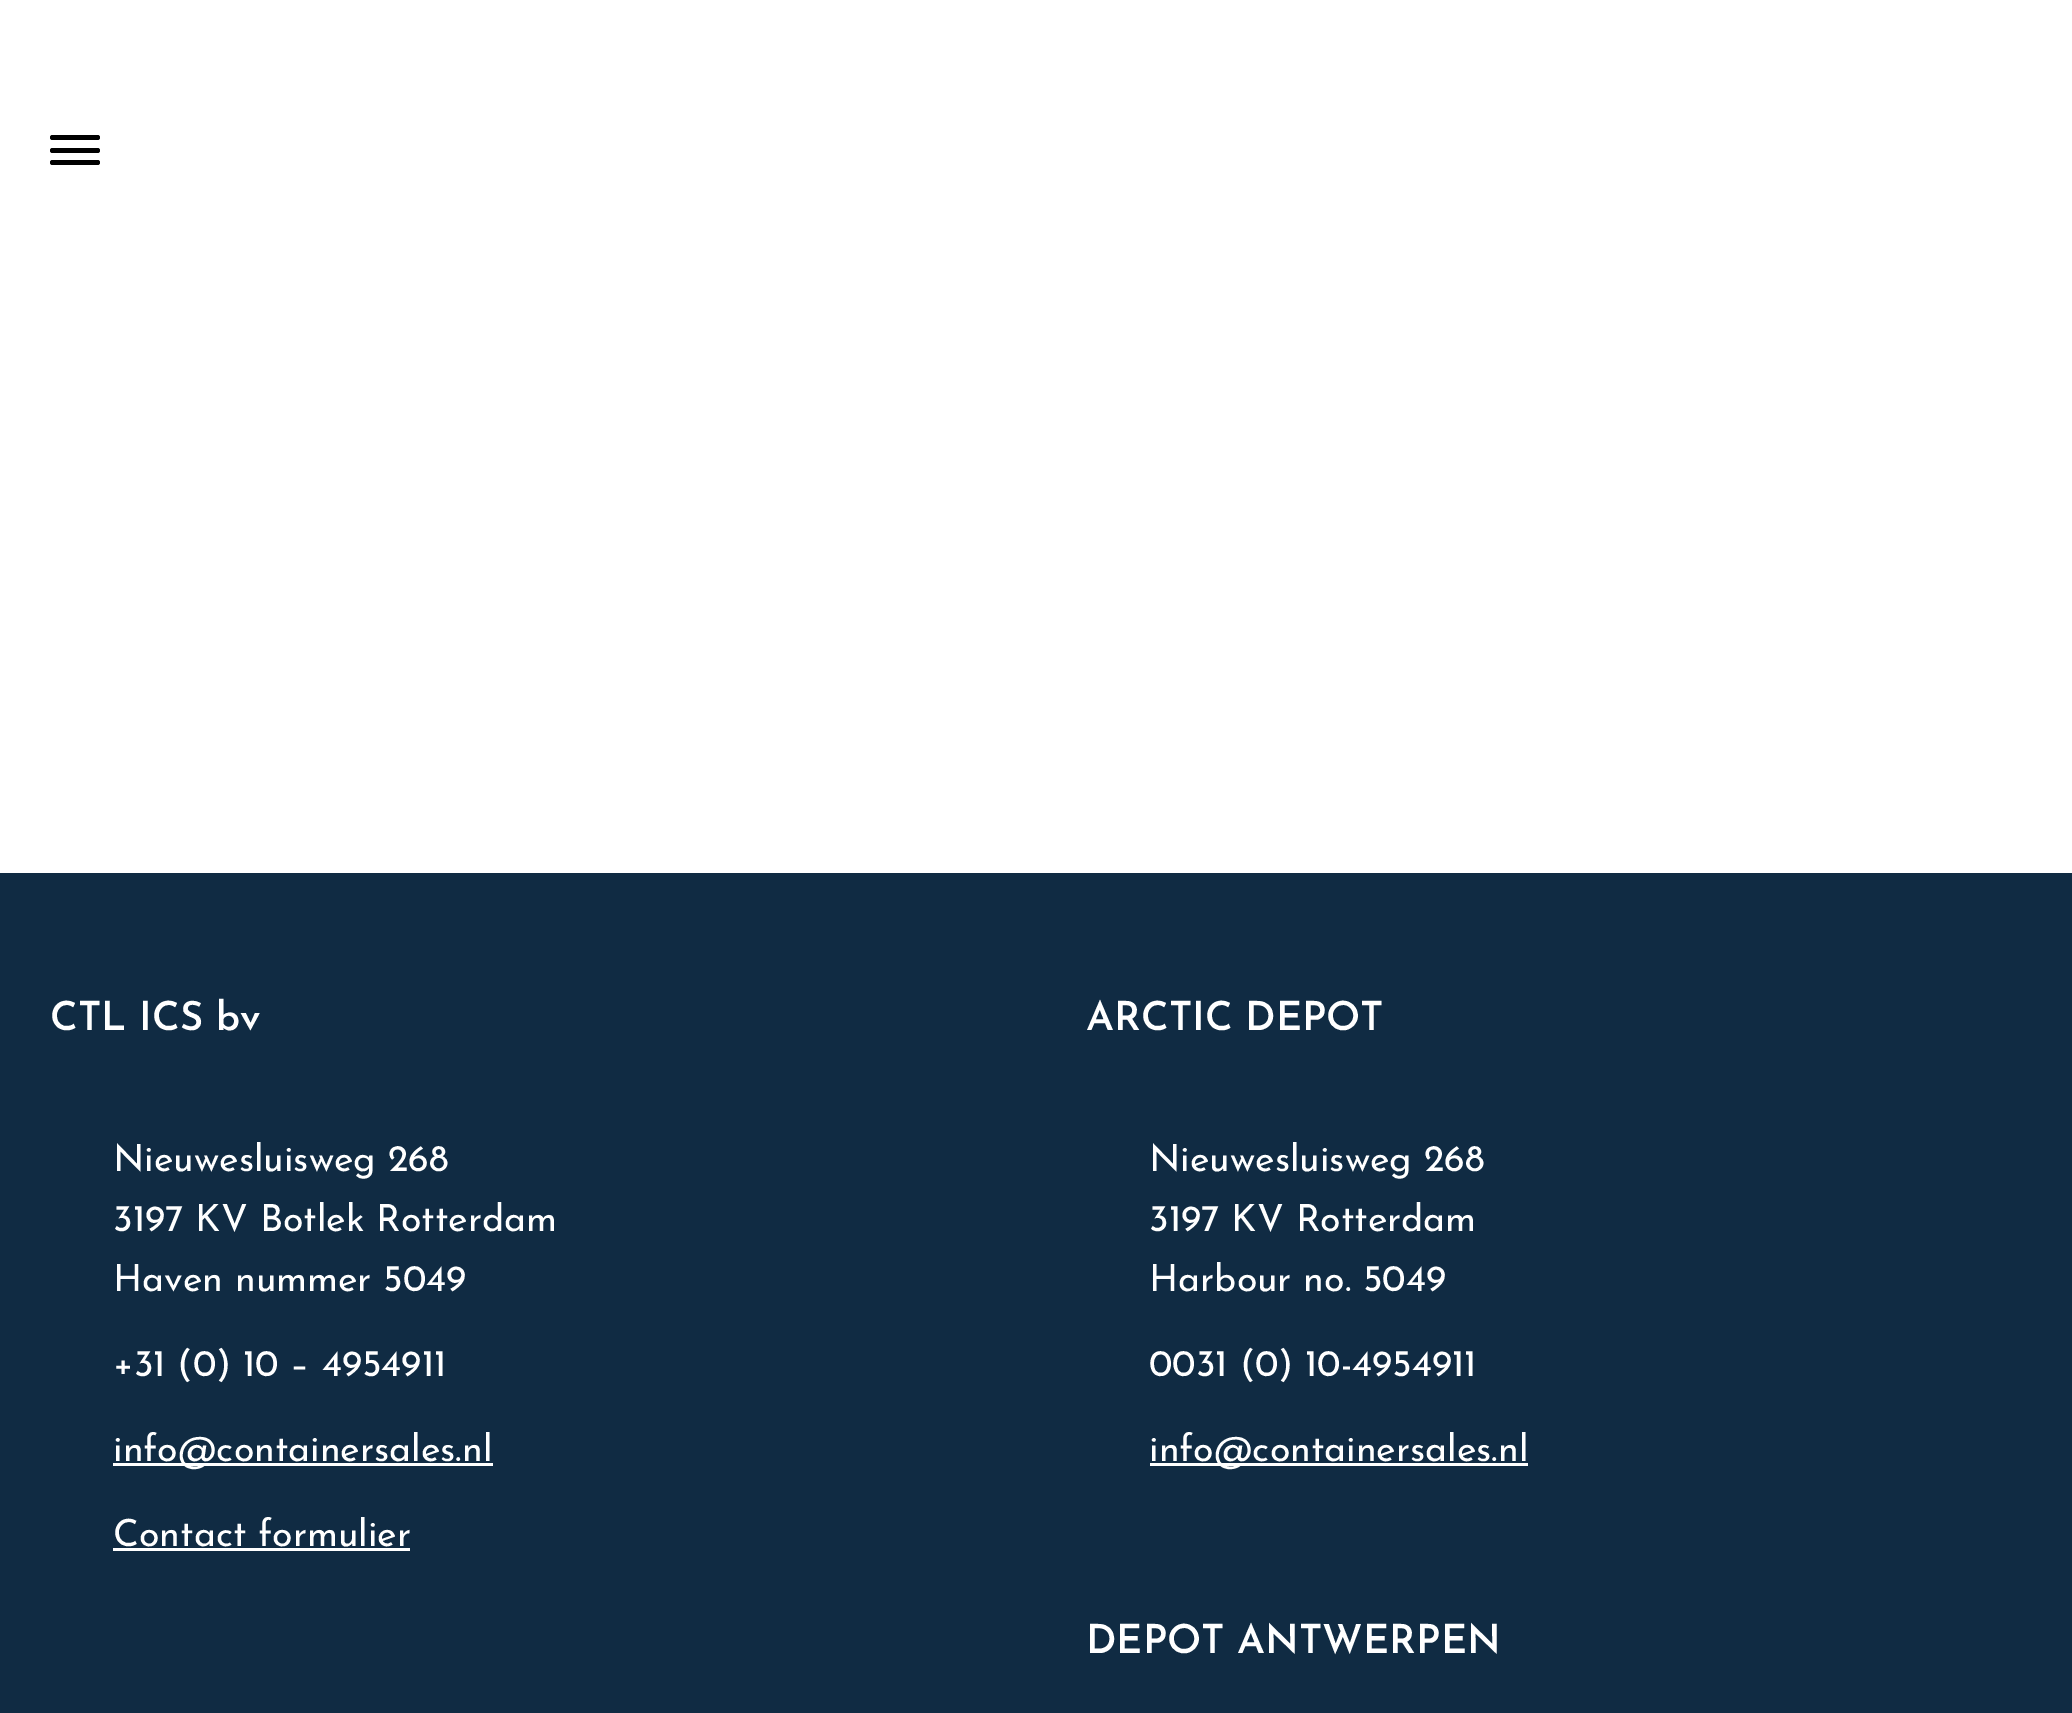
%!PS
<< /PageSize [2072 1713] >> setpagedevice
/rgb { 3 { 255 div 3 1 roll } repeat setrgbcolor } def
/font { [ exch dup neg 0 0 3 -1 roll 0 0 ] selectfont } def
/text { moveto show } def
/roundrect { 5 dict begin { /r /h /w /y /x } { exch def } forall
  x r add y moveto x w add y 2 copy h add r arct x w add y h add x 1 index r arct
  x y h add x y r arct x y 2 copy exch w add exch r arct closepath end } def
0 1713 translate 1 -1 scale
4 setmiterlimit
255 255 255 rgb
0 0 2072 1713 rectfill
0 0 0 rgb
50 135 50 5 2.5 roundrect fill
50 148 50 5 2.5 roundrect fill
50 160 50 5 2.5 roundrect fill
16 43 67 rgb
0 873 2072 840 rectfill
255 255 255 rgb
113 1463 380 3 rectfill
113 1548 297 3 rectfill
1150 1463 378 3 rectfill
/JosefinSans-SemiBold 40 font
(CTL ICS bv) 50 1030 text
/JosefinSans-Regular 37.5 font
(Nieuwesluisweg 268) 113 1171 text
(3197 KV Botlek Rotterdam) 113 1231 text
(Haven nummer 5049) 113 1291 text
(+31 \(0\) 10 – 4954911) 113 1376 text
(info@containersales.nl) 113 1461 text
(Contact formulier) 113 1546 text
/JosefinSans-SemiBold 40 font
(ARCTIC DEPOT) 1086 1030 text
/JosefinSans-Regular 37.5 font
(Nieuwesluisweg 268) 1149 1171 text
(3197 KV Rotterdam) 1149 1231 text
(Harbour no. 5049) 1149 1291 text
(0031 \(0\) 10-4954911) 1149 1376 text
(info@containersales.nl) 1149 1461 text
/JosefinSans-SemiBold 40 font
(DEPOT ANTWERPEN) 1086 1653 text
showpage
